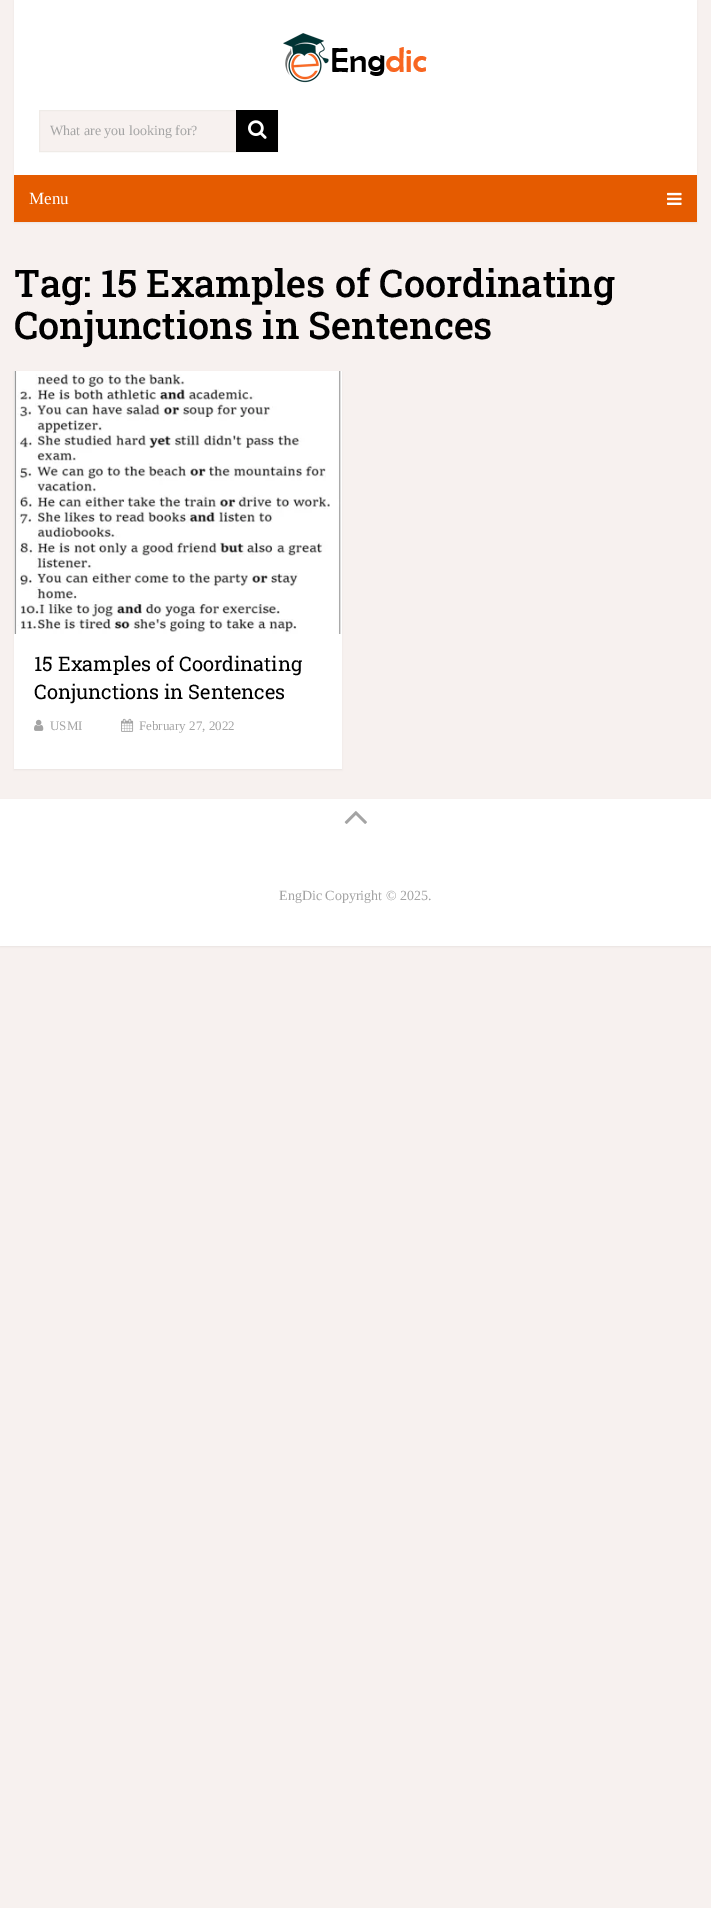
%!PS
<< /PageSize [711 1908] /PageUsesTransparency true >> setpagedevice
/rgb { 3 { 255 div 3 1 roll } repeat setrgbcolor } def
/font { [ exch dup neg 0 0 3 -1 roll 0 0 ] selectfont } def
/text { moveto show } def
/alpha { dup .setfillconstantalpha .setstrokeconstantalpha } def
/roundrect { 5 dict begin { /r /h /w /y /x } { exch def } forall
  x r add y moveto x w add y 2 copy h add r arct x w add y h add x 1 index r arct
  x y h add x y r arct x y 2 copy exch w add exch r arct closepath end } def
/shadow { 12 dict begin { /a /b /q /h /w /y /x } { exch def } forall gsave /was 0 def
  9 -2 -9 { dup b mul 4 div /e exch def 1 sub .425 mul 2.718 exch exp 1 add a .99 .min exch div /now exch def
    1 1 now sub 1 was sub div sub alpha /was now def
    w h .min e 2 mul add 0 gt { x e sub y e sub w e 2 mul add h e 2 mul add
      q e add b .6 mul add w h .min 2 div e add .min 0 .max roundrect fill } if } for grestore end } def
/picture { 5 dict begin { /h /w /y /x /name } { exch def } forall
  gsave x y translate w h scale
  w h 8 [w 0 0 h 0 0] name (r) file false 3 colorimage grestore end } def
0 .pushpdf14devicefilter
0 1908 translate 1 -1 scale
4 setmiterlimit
247 241 239 rgb
0 0 711 1908 rectfill
0 0 0 rgb
14 1 683 222 0 1 0.05 shadow
255 255 255 rgb
14 0 683 175 rectfill
(img_01.rgb) 283 33 144 50 picture
247 241 239 rgb
40 111 196 40 rectfill
239 235 231 rgb
39.5 110.5 238 41 rectstroke
0 0 0 rgb
236 110 42 42 rectfill
(img_02.rgb) 248 120 19 19 picture
229 91 0 rgb
14 175 683 47 rectfill
(img_03.rgb) 667 192 15 13 picture
0 0 0 rgb
14 372 328 398 0 1 0.05 shadow
255 255 255 rgb
14 371 328 398 rectfill
(img_04.rgb) 14 371 327 263 picture
(img_05.rgb) 34 719 10 12 picture
(img_06.rgb) 121 718 13 14 picture
0 0 0 rgb
0 800 711 147 0 1 0.05 shadow
255 255 255 rgb
0 799 711 147 rectfill
(img_07.rgb) 344 811 23 13 picture
/LiberationSerif-Regular 14 font
164 164 164 rgb
(What are you looking for?) 50 135 text
/LiberationSerif-Regular 17 font
255 255 255 rgb
(Menu) 29 204 text
/RobotoSlab-Medium 38 font
0 0 0 rgb
(Tag: 15 Examples of Coordinating) 14 297 text
(Conjunctions in Sentences) 14 339 text
/RobotoSlab-Regular 20 font
(15 Examples of Coordinating) 34 671 text
(Conjunctions in Sentences) 34 699 text
/LiberationSerif-Regular 13 font
164 164 164 rgb
(USMI) 50 730 text
(February 27, 2022) 139 730 text
/LiberationSerif-Regular 14 font
(EngDic Copyright © 2025.) 279 900 text
.poppdf14devicefilter showpage
